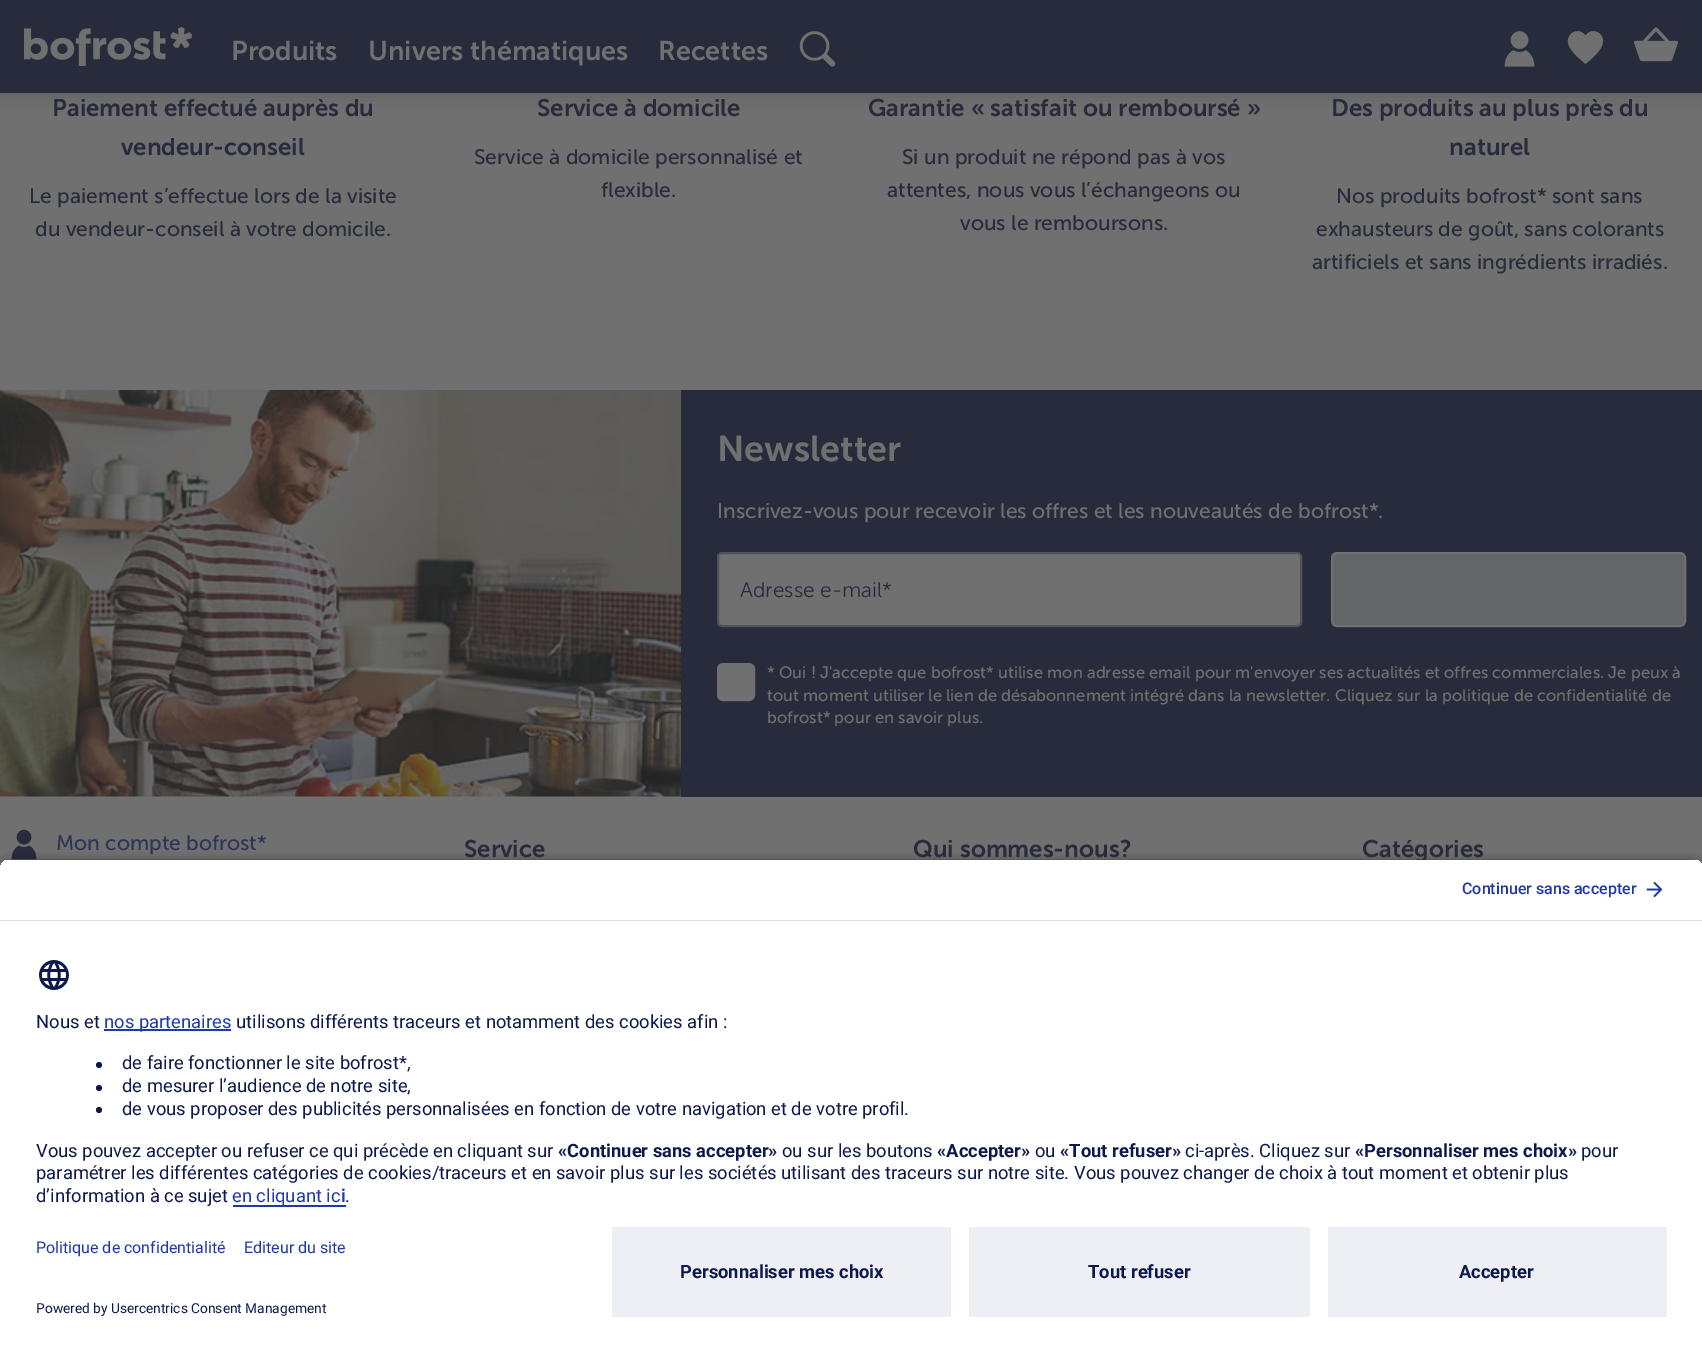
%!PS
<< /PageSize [1702 1353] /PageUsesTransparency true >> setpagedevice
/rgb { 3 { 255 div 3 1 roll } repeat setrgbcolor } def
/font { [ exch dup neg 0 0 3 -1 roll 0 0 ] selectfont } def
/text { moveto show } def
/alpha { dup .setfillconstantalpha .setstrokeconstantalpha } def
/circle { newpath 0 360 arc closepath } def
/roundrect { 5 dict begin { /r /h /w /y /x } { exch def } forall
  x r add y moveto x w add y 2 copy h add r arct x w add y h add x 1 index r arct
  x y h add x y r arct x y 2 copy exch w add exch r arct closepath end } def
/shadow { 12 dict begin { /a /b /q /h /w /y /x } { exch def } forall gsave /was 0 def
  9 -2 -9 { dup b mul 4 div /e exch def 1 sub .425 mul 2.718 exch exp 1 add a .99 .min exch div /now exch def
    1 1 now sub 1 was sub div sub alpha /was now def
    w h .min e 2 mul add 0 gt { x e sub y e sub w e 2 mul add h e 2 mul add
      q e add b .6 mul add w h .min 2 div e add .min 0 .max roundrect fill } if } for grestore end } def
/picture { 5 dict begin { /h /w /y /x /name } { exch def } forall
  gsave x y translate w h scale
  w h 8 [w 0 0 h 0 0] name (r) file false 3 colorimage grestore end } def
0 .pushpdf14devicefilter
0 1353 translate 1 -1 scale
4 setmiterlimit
112 112 112 rgb
0 0 1702 1353 rectfill
36 36 36 rgb
0 3 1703 93 0 7.5 0.2 shadow
40 43 59 rgb
0 0 1702 93 rectfill
(img_01.rgb) 24 27 168 39 picture
(img_02.rgb) 799 31 37 36 picture
(img_03.rgb) 1504 31 31 36 picture
(img_04.rgb) 1567 31 37 33 picture
(img_05.rgb) 1634 27 44 35 picture
(img_06.rgb) 0 390 681 407 picture
681 390 1021 407 rectfill
112 112 112 rgb
718 553 583 73 4 roundrect gsave fill grestore
80 84 88 rgb
2 setlinewidth
stroke
100 101 102 rgb
1332 553 353 73 5 roundrect gsave fill grestore
112 112 112 rgb
stroke
718.5 664.5 35 35 4.5 roundrect gsave fill grestore
3 setlinewidth
stroke
(img_07.rgb) 11 829 26 31 picture
0 0 0 rgb
0 863 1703 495 12 5 0.8 shadow
222 222 222 rgb
0 920 1702 1 rectfill
255 255 255 rgb
0 921 1702 432 rectfill
(img_09.rgb) 39 960 30 30 picture
31 57 171 rgb
104 1029 127 2 rectfill
13 25 77 rgb
99 1065 3 circle fill
99 1088 3 circle fill
99 1110 3 circle fill
31 57 171 rgb
233 1205 113 2 rectfill
238 238 245 rgb
612 1227 339 90 rectfill
969 1227 341 90 rectfill
1328 1227 339 90 rectfill
/MuseoSans-SemiBold 27 font
112 112 112 rgb
(Produits) 231 60 text
(Univers thématiques) 368 60 text
(Recettes) 658 60 text
/MuseoSans-SemiBold 24 font
40 43 59 rgb
(Paiement effectué auprès du) 52 116 text
(vendeur-conseil) 121 155 text
/MuseoSans-Regular 21 font
(Le paiement s’effectue lors de la visite) 29 203 text
(du vendeur-conseil à votre domicile.) 35 236 text
/MuseoSans-SemiBold 24 font
(Service à domicile) 537 116 text
/MuseoSans-Regular 21 font
(Service à domicile personnalisé et) 474 164 text
(flexible.) 601 197 text
/MuseoSans-SemiBold 24 font
(Garantie « satisfait ou remboursé ») 868 116 text
/MuseoSans-Regular 21 font
(Si un produit ne répond pas à vos) 902 164 text
(attentes, nous vous l’échangeons ou) 887 197 text
(vous le remboursons.) 960 230 text
/MuseoSans-SemiBold 24 font
(Des produits au plus près du) 1331 116 text
(naturel) 1449 155 text
/MuseoSans-Regular 21 font
(Nos produits bofrost* sont sans) 1336 203 text
(exhausteurs de goût, sans colorants) 1316 236 text
(artificiels et sans ingrédients irradiés.) 1312 269 text
/MuseoSans-SemiBold 36 font
112 112 112 rgb
(Newsletter) 717 461 text
/MuseoSans-Regular 21 font
(Inscrivez-vous pour recevoir les offres et les nouveautés de bofrost*.) 717 518 text
/MuseoSans-Light 21 font
40 43 59 rgb
(Adresse e-mail*) 740 597 text
/MuseoSans-Regular 16.5 font
112 112 112 rgb
(* Oui ! J'accepte que bofrost* utilise mon adresse email pour m'envoyer ses actualités et offres commerciales. Je peux à) 767 678 text
(tout moment utiliser le lien de désabonnement intégré dans la newsletter. Cliquez sur la politique de confidentialité de) 767 701 text
(bofrost* pour en savoir plus.) 767 723 text
/MuseoSans-Regular 21 font
45 53 87 rgb
(Mon compte bofrost*) 56 850 text
/MuseoSans-SemiBold 24 font
40 43 59 rgb
(Service) 464 857 text
(Qui sommes-nous?) 913 857 text
(Catégories) 1362 857 text
gsave
12 858 moveto 1679 0 rlineto 6.5 0 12 5.5 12 12 rcurveto 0 345 rlineto -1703 0 rlineto 0 -345 rlineto 0 -6.5 5.5 -12 12 -12 rcurveto closepath clip newpath
255 255 255 rgb
0 860 1702 60 rectfill
grestore
/Roboto-Medium 16 font
31 57 171 rgb
(Continuer sans accepter) 1462 894 text
(img_08.rgb) 1646 881 17 17 picture
/Roboto-Regular 18.38 font
13 25 77 rgb
(Nous et) 36 1028 text
31 57 171 rgb
(nos partenaires) 104 1028 text
13 25 77 rgb
(utilisons différents traceurs et notamment des cookies afin :) 236 1028 text
(de faire fonctionner le site bofrost*,) 122 1069 text
(de mesurer l’audience de notre site,) 122 1092 text
(de vous proposer des publicités personnalisées en fonction de votre navigation et de votre profil.) 122 1115 text
(Vous pouvez accepter ou refuser ce qui précède en cliquant sur) 36 1157 text
/Roboto-Bold 18.38 font
(«Continuer sans accepter») 558 1157 text
/Roboto-Regular 18.38 font
(ou sur les boutons) 782 1157 text
/Roboto-Bold 18.38 font
(«Accepter») 937 1157 text
/Roboto-Regular 18.38 font
(ou) 1035 1157 text
/Roboto-Bold 18.38 font
(«Tout refuser») 1060 1157 text
/Roboto-Regular 18.38 font
(ci-après. Cliquez sur) 1185 1157 text
/Roboto-Bold 18.38 font
(«Personnaliser mes choix») 1355 1157 text
/Roboto-Regular 18.38 font
(pour) 1581 1157 text
(paramétrer les différentes catégories de cookies/traceurs et en savoir plus sur les sociétés utilisant des traceurs sur notre site. Vous pouvez changer de choix à tout moment et obtenir plus) 36 1179 text
(d’information à ce sujet) 36 1202 text
31 57 171 rgb
(en cliquant ic) 232 1202 text
/Roboto-SemiBold 18.38 font
(i) 341 1202 text
/Roboto-Regular 18.38 font
13 25 77 rgb
(.) 345 1202 text
/Roboto-Regular 16 font
31 57 171 rgb
(Politique de confidentialité) 36 1253 text
(Editeur du site) 244 1253 text
/Roboto-Regular 13.75 font
13 25 77 rgb
(Powered by Usercentrics Consent Management) 36 1313 text
/Roboto-Bold 18.38 font
(Personnaliser mes choix) 680 1278 text
(Tout refuser) 1088 1278 text
(Accepter) 1459 1278 text
.poppdf14devicefilter showpage
